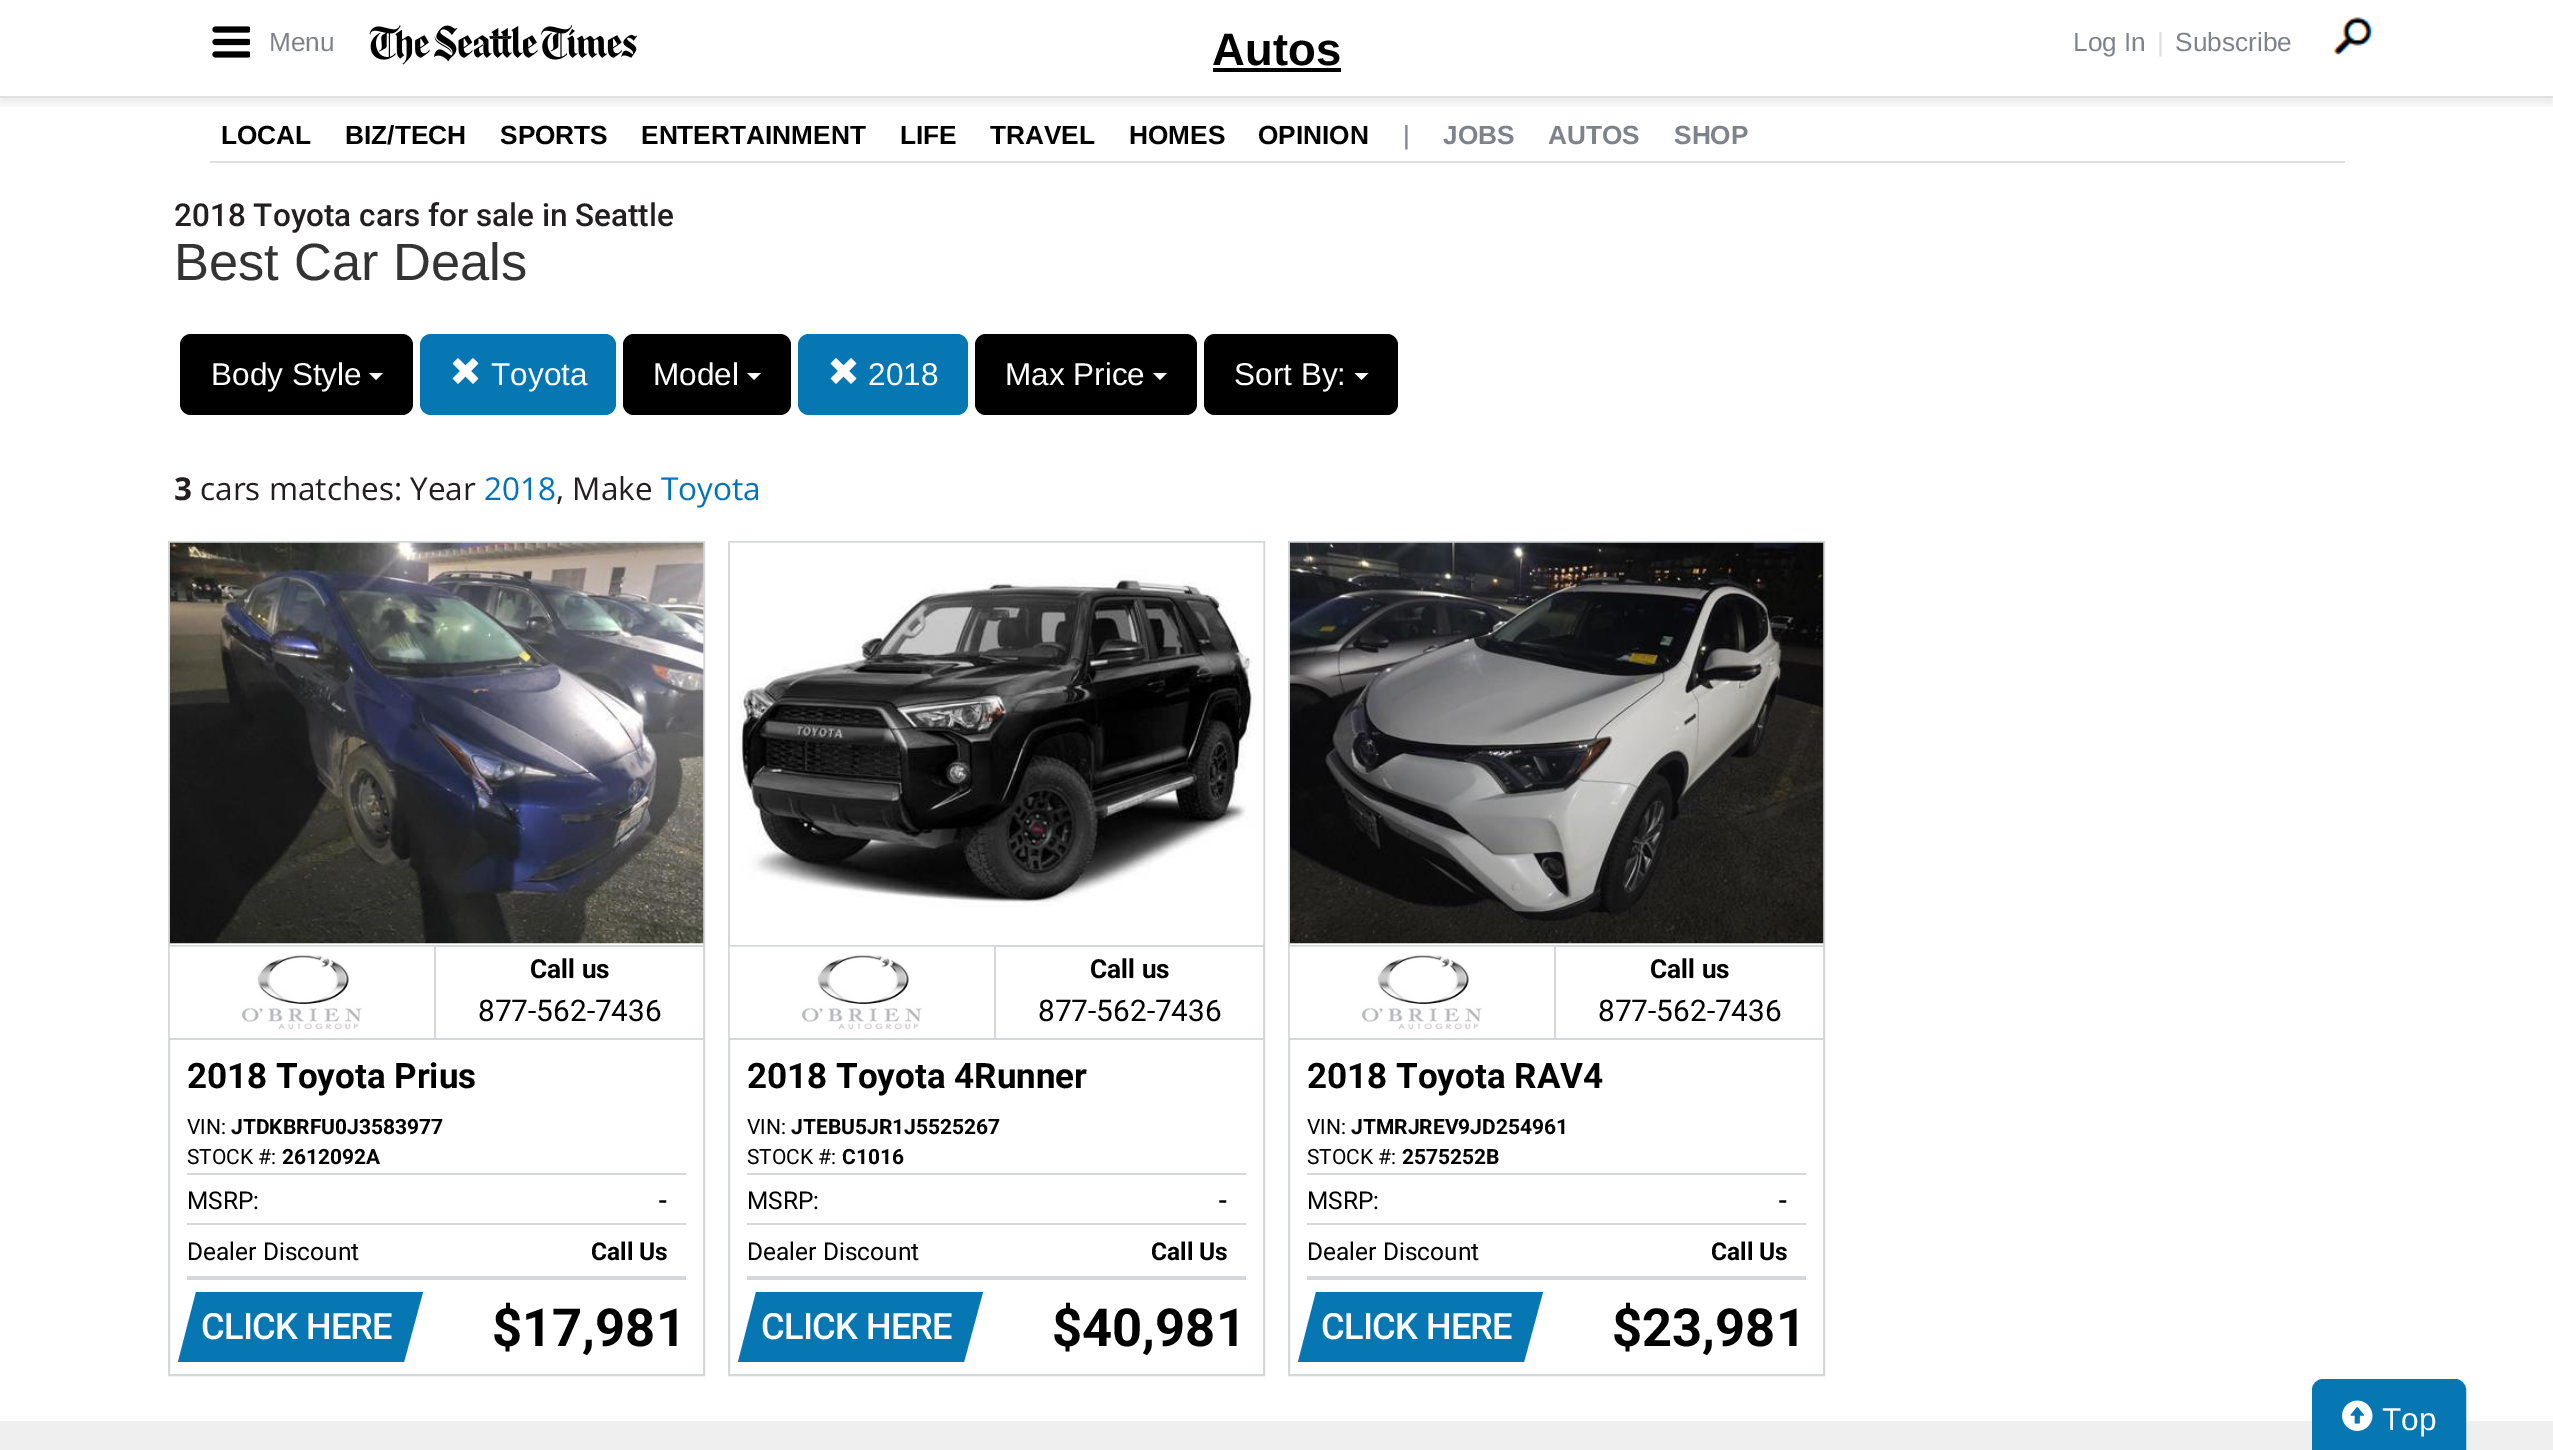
%!PS
<< /PageSize [2553 1450] /PageUsesTransparency true >> setpagedevice
/rgb { 3 { 255 div 3 1 roll } repeat setrgbcolor } def
/font { [ exch dup neg 0 0 3 -1 roll 0 0 ] selectfont } def
/text { moveto show } def
/alpha { dup .setfillconstantalpha .setstrokeconstantalpha } def
/roundrect { 5 dict begin { /r /h /w /y /x } { exch def } forall
  x r add y moveto x w add y 2 copy h add r arct x w add y h add x 1 index r arct
  x y h add x y r arct x y 2 copy exch w add exch r arct closepath end } def
/shadow { 12 dict begin { /a /b /q /h /w /y /x } { exch def } forall gsave /was 0 def
  9 -2 -9 { dup b mul 4 div /e exch def 1 sub .425 mul 2.718 exch exp 1 add a .99 .min exch div /now exch def
    1 1 now sub 1 was sub div sub alpha /was now def
    w h .min e 2 mul add 0 gt { x e sub y e sub w e 2 mul add h e 2 mul add
      q e add b .6 mul add w h .min 2 div e add .min 0 .max roundrect fill } if } for grestore end } def
/picture { 5 dict begin { /h /w /y /x /name } { exch def } forall
  gsave x y translate w h scale
  w h 8 [w 0 0 h 0 0] name (r) file false 3 colorimage grestore end } def
0 .pushpdf14devicefilter
0 1450 translate 1 -1 scale
4 setmiterlimit
255 255 255 rgb
0 0 2553 1450 rectfill
gsave
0 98 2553 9 rectclip
0 0 0 rgb
0 4 2553 98 0 6 0.1 shadow
grestore
224 224 224 rgb
0 96 2553 2 rectfill
(img_01.rgb) 212 26 38 32 picture
(img_02.rgb) 369 25 268 40 picture
(img_03.rgb) 2334 17 38 38 picture
0 0 0 rgb
1213 68 128 4 rectfill
224 224 224 rgb
210 161 2135 2 rectfill
0 0 0 rgb
180 334 233 81 11 roundrect fill
255 255 255 rgb
369 373 moveto 14 0 rlineto -7 7 rlineto closepath fill
7 119 179 rgb
420 334 196 81 11 roundrect fill
(img_04.rgb) 452 358 27 26 picture
0 0 0 rgb
623 334 168 81 11 roundrect fill
255 255 255 rgb
747 373 moveto 14 0 rlineto -7 7 rlineto closepath fill
7 119 179 rgb
798 334 170 81 11 roundrect fill
(img_04.rgb) 830 358 27 26 picture
0 0 0 rgb
975 334 222 81 11 roundrect fill
255 255 255 rgb
1153 373 moveto 14 0 rlineto -7 7 rlineto closepath fill
0 0 0 rgb
1204 334 194 81 11 roundrect fill
255 255 255 rgb
1354.5 373 moveto 14 0 rlineto -7 7 rlineto closepath fill
212 216 217 rgb
2 setlinewidth
169 542 535 833 rectstroke
(img_05.rgb) 169 542 535 402 picture
170 945 534 2 rectfill
434 945 2 95 rectfill
170 1038 534 2 rectfill
(img_06.rgb) 169 946 265 90 picture
187 1173 499 2 rectfill
187 1223 499 2 rectfill
187 1276 499 4 rectfill
7 119 179 rgb
196 1292 moveto 227 0 rlineto -19 70 rlineto -226 0 rlineto closepath fill
212 216 217 rgb
729 542 535 833 rectstroke
(img_07.rgb) 730 542 534 401 picture
730 945 534 2 rectfill
994 945 2 95 rectfill
730 1038 534 2 rectfill
(img_06.rgb) 729 946 265 90 picture
747 1173 499 2 rectfill
747 1223 499 2 rectfill
747 1276 499 4 rectfill
7 119 179 rgb
756 1292 moveto 227 0 rlineto -19 70 rlineto -226 0 rlineto closepath fill
212 216 217 rgb
1289 542 535 833 rectstroke
(img_08.rgb) 1289 542 535 402 picture
1290 945 534 2 rectfill
1554 945 2 95 rectfill
1290 1038 534 2 rectfill
(img_06.rgb) 1289 946 265 90 picture
1307 1173 499 2 rectfill
1307 1223 499 2 rectfill
1307 1276 499 4 rectfill
7 119 179 rgb
1316 1292 moveto 227 0 rlineto -19 70 rlineto -226 0 rlineto closepath fill
239 239 239 rgb
0 1421 2553 29 rectfill
7 119 179 rgb
2313 1380 152 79 10 roundrect gsave fill grestore
stroke
(img_09.rgb) 2342 1400 31 31 picture
/LiberationSans-Regular 26.25 font
126 131 139 rgb
(Menu) 269 51 text
(Log In) 2073 51 text
224 224 224 rgb
(|) 2157 51 text
126 131 139 rgb
(Subscribe) 2175 51 text
/LiberationSans-Bold 45.5 font
0 0 0 rgb
(Autos) 1212 65 text
/LiberationSans-Bold 26.25 font
(LOCAL) 221 144 text
(BIZ/TECH) 345 144 text
(SPORTS) 500 144 text
(ENTERTAINMENT) 641 144 text
(LIFE) 900 144 text
(TRAVEL) 990 144 text
(HOMES) 1129 144 text
(OPINION) 1258 144 text
/LiberationSans-Regular 26.25 font
126 131 139 rgb
(|) 1403 144 text
/LiberationSans-Bold 26.25 font
(JOBS) 1443 144 text
(AUTOS) 1548 144 text
(SHOP) 1674 144 text
/Roboto-Medium 31.5 font
35 31 32 rgb
(2018 Toyota cars for sale in Seattle) 174 226 text
/LiberationSans-Regular 52.5 font
51 51 51 rgb
(Best Car Deals) 174 280 text
/LiberationSans-Regular 31.5 font
255 255 255 rgb
(Body Style) 211 385 text
(Toyota) 491 385 text
(Model) 653 385 text
(2018) 868 385 text
(Max Price) 1005 385 text
(Sort By:) 1234 385 text
/OpenSans-Bold 31.5 font
35 31 32 rgb
(3) 174 500 text
/OpenSans-Regular 31.5 font
(cars matches: Year) 200 500 text
0 115 189 rgb
(2018) 484 500 text
35 31 32 rgb
(, Make) 556 500 text
0 115 189 rgb
(Toyota) 661 500 text
/Roboto-Bold 26.25 font
0 0 0 rgb
(Call us) 530 978 text
/Roboto-Regular 29.75 font
(877-562-7436) 478 1021 text
/Roboto-Bold 35 font
(2018 Toyota Prius) 187 1088 text
/Roboto-Regular 21 font
(VIN:) 187 1134 text
/Roboto-Bold 21 font
(JTDKBRFU0J3583977) 231 1134 text
/Roboto-Regular 21 font
(STOCK #:) 187 1164 text
/Roboto-Bold 21 font
(2612092A) 282 1164 text
/Roboto-Regular 24.5 font
(MSRP:) 187 1209 text
/Roboto-Bold 24.5 font
(-) 658 1209 text
/Roboto-Regular 24.5 font
(Dealer Discount) 187 1260 text
/Roboto-Bold 24.5 font
(Call Us) 591 1260 text
/Roboto-Medium 36.25 font
255 255 255 rgb
201 1339 moveto -0.75 0 (CLICK HERE) ashow
/Roboto-Bold 52.5 font
0 0 0 rgb
($17,981) 492 1346 text
/Roboto-Bold 26.25 font
(Call us) 1090 978 text
/Roboto-Regular 29.75 font
(877-562-7436) 1038 1021 text
/Roboto-Bold 35 font
(2018 Toyota 4Runner) 747 1088 text
/Roboto-Regular 21 font
(VIN:) 747 1134 text
/Roboto-Bold 21 font
(JTEBU5JR1J5525267) 791 1134 text
/Roboto-Regular 21 font
(STOCK #:) 747 1164 text
/Roboto-Bold 21 font
(C1016) 842 1164 text
/Roboto-Regular 24.5 font
(MSRP:) 747 1209 text
/Roboto-Bold 24.5 font
(-) 1218 1209 text
/Roboto-Regular 24.5 font
(Dealer Discount) 747 1260 text
/Roboto-Bold 24.5 font
(Call Us) 1151 1260 text
/Roboto-Medium 36.25 font
255 255 255 rgb
761 1339 moveto -0.75 0 (CLICK HERE) ashow
/Roboto-Bold 52.5 font
0 0 0 rgb
($40,981) 1052 1346 text
/Roboto-Bold 26.25 font
(Call us) 1650 978 text
/Roboto-Regular 29.75 font
(877-562-7436) 1598 1021 text
/Roboto-Bold 35 font
(2018 Toyota RAV4) 1307 1088 text
/Roboto-Regular 21 font
(VIN:) 1307 1134 text
/Roboto-Bold 21 font
(JTMRJREV9JD254961) 1351 1134 text
/Roboto-Regular 21 font
(STOCK #:) 1307 1164 text
/Roboto-Bold 21 font
(2575252B) 1402 1164 text
/Roboto-Regular 24.5 font
(MSRP:) 1307 1209 text
/Roboto-Bold 24.5 font
(-) 1778 1209 text
/Roboto-Regular 24.5 font
(Dealer Discount) 1307 1260 text
/Roboto-Bold 24.5 font
(Call Us) 1711 1260 text
/Roboto-Medium 36.25 font
255 255 255 rgb
1321 1339 moveto -0.75 0 (CLICK HERE) ashow
/Roboto-Bold 52.5 font
0 0 0 rgb
($23,981) 1612 1346 text
/LiberationSans-Regular 31.5 font
255 255 255 rgb
(Top) 2382 1430 text
.poppdf14devicefilter showpage
